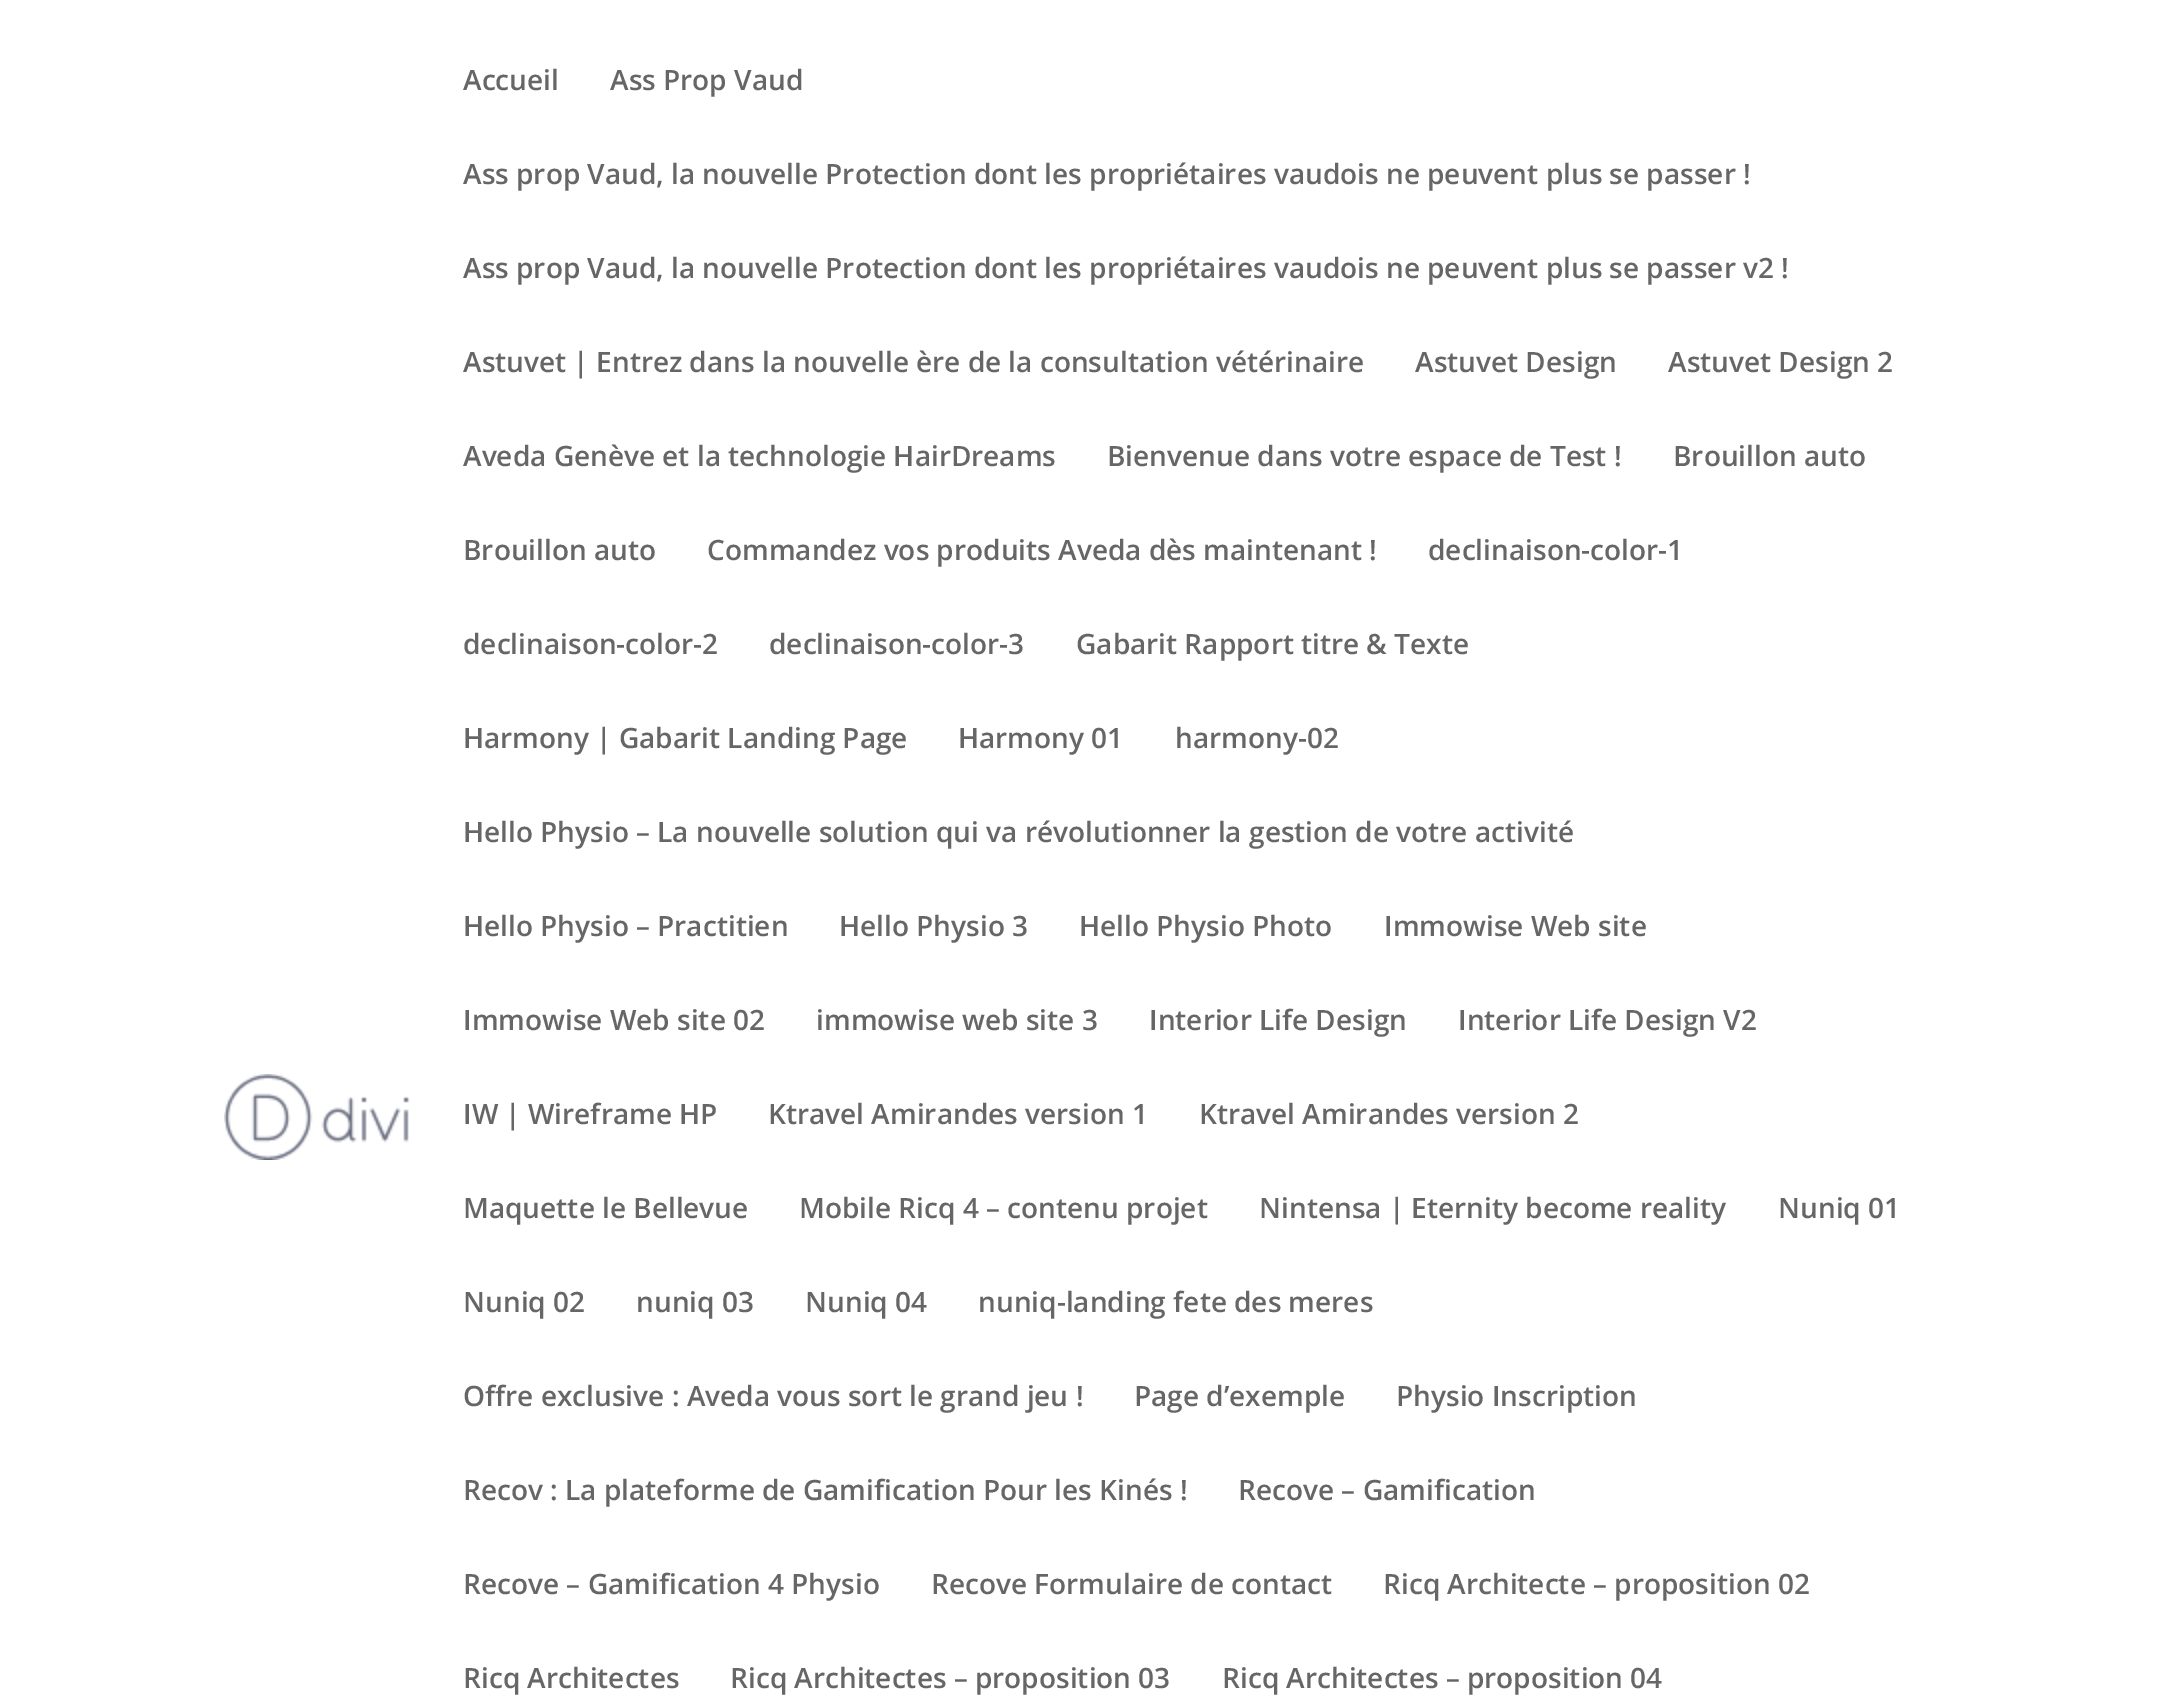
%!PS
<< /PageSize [2165 1708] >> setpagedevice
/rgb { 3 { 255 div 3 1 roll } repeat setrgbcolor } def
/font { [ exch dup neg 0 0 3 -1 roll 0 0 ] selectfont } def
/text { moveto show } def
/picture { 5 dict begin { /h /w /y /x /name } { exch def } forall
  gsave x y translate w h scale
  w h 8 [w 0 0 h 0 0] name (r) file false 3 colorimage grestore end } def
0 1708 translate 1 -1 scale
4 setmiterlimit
255 255 255 rgb
0 0 2165 1708 rectfill
(img_01.rgb) 224 1074 186 86 picture
/OpenSans-SemiBold 28 font
102 102 102 rgb
(Accueil) 463 90 text
(Ass Prop Vaud) 610 90 text
(Ass prop Vaud, la nouvelle Protection dont les propriétaires vaudois ne peuvent plus se passer !) 463 184 text
(Ass prop Vaud, la nouvelle Protection dont les propriétaires vaudois ne peuvent plus se passer v2 !) 463 278 text
(Astuvet | Entrez dans la nouvelle ère de la consultation vétérinaire) 463 372 text
(Astuvet Design) 1415 372 text
(Astuvet Design 2) 1668 372 text
(Aveda Genève et la technologie HairDreams) 463 466 text
(Bienvenue dans votre espace de Test !) 1107 466 text
(Brouillon auto) 1673 466 text
(Brouillon auto) 463 560 text
(Commandez vos produits Aveda dès maintenant !) 707 560 text
(declinaison-color-1) 1428 560 text
(declinaison-color-2) 463 654 text
(declinaison-color-3) 769 654 text
(Gabarit Rapport titre & Texte) 1076 654 text
(Harmony | Gabarit Landing Page) 463 748 text
(Harmony 01) 958 748 text
(harmony-02) 1175 748 text
(Hello Physio – La nouvelle solution qui va révolutionner la gestion de votre activité) 463 842 text
(Hello Physio – Practitien) 463 936 text
(Hello Physio 3) 839 936 text
(Hello Physio Photo) 1079 936 text
(Immowise Web site) 1384 936 text
(Immowise Web site 02) 463 1030 text
(immowise web site 3) 816 1030 text
(Interior Life Design) 1149 1030 text
(Interior Life Design V2) 1458 1030 text
(IW | Wireframe HP) 463 1124 text
(Ktravel Amirandes version 1) 768 1124 text
(Ktravel Amirandes version 2) 1199 1124 text
(Maquette le Bellevue) 463 1218 text
(Mobile Ricq 4 – contenu projet) 799 1218 text
(Nintensa | Eternity become reality) 1259 1218 text
(Nuniq 01) 1778 1218 text
(Nuniq 02) 463 1312 text
(nuniq 03) 636 1312 text
(Nuniq 04) 805 1312 text
(nuniq-landing fete des meres) 978 1312 text
(Offre exclusive : Aveda vous sort le grand jeu !) 463 1406 text
(Page d’exemple) 1134 1406 text
(Physio Inscription) 1396 1406 text
(Recov : La plateforme de Gamification Pour les Kinés !) 463 1500 text
(Recove – Gamification) 1238 1500 text
(Recove – Gamification 4 Physio) 463 1594 text
(Recove Formulaire de contact) 931 1594 text
(Ricq Architecte – proposition 02) 1383 1594 text
(Ricq Architectes) 463 1688 text
(Ricq Architectes – proposition 03) 730 1688 text
(Ricq Architectes – proposition 04) 1222 1688 text
showpage
